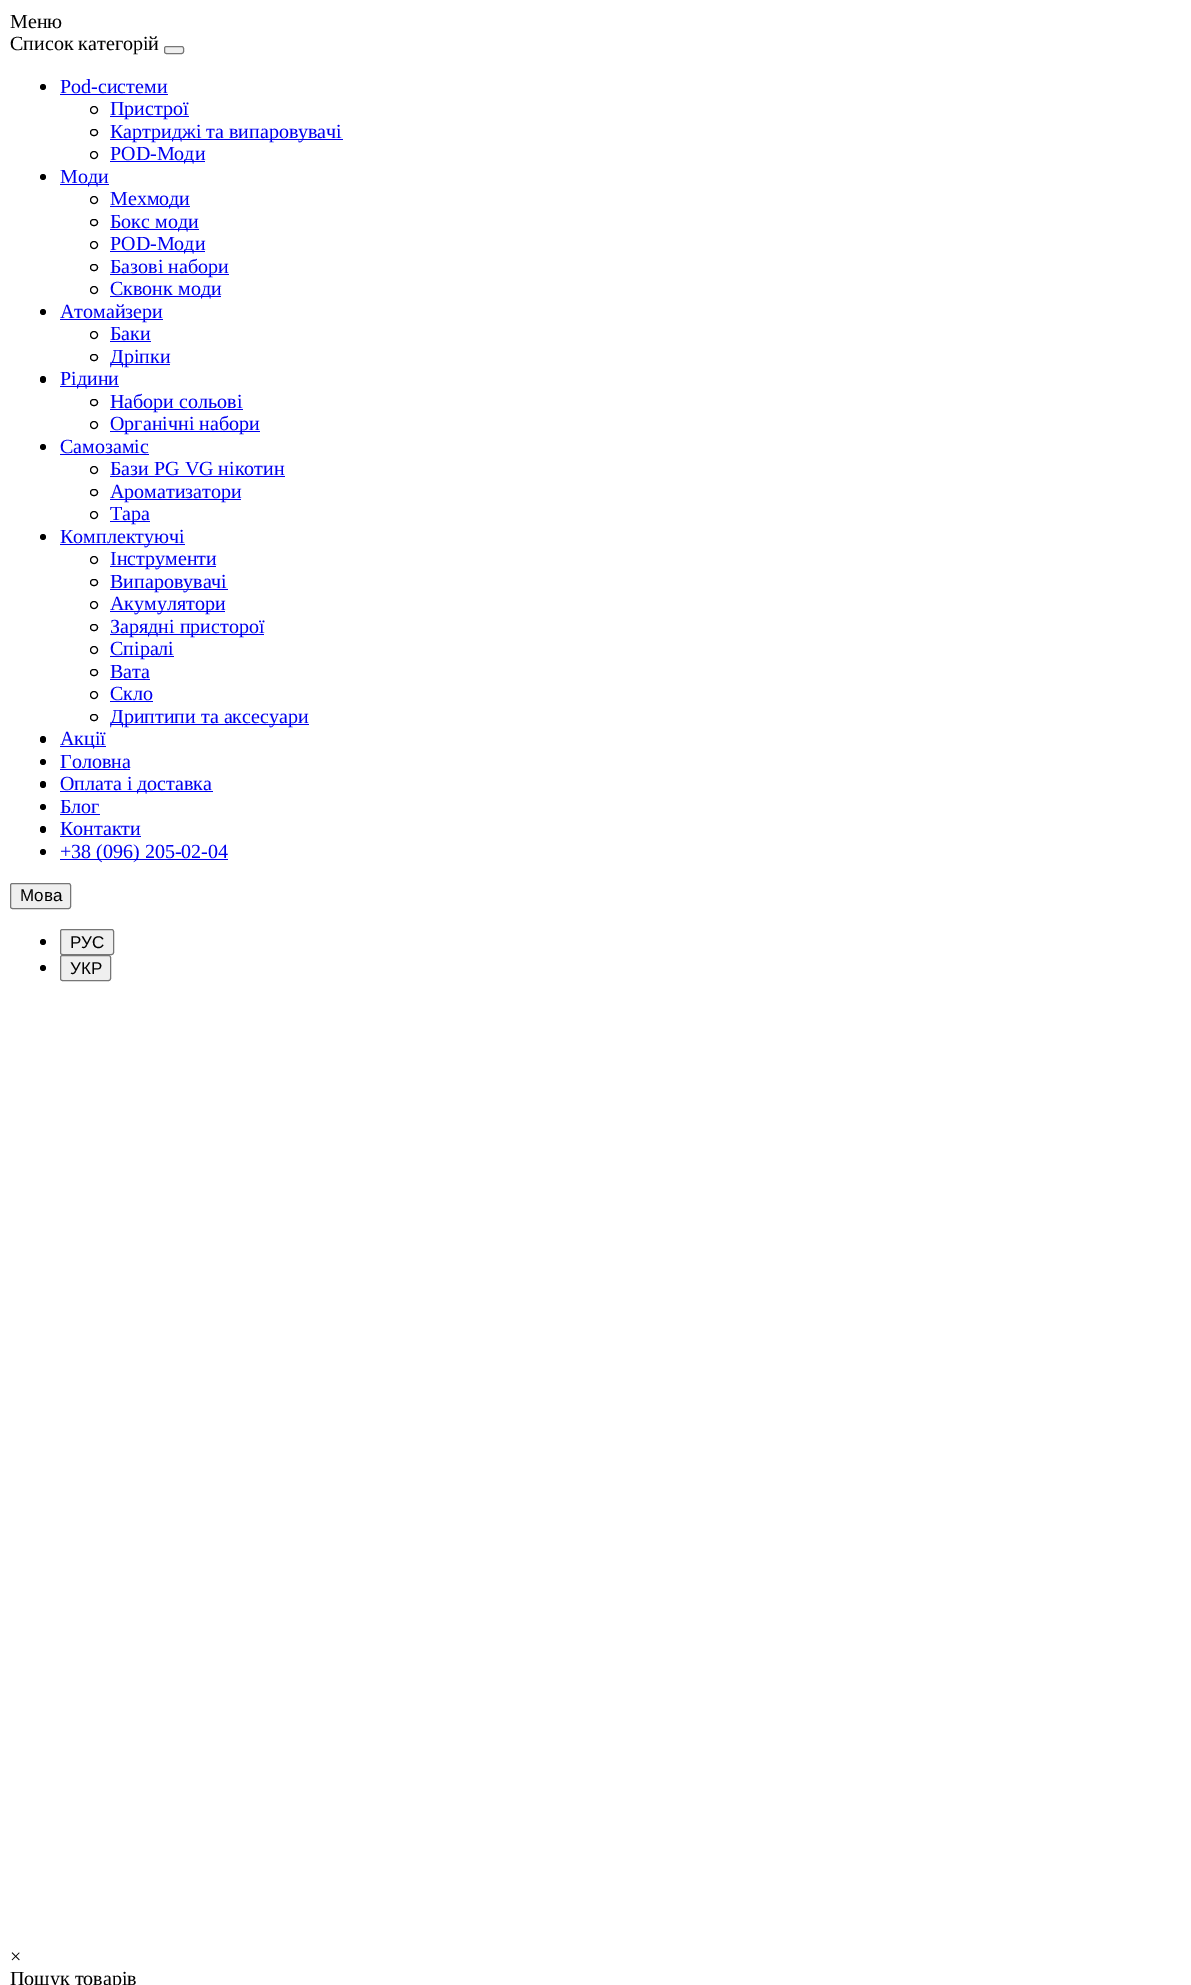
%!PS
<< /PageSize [1191 1985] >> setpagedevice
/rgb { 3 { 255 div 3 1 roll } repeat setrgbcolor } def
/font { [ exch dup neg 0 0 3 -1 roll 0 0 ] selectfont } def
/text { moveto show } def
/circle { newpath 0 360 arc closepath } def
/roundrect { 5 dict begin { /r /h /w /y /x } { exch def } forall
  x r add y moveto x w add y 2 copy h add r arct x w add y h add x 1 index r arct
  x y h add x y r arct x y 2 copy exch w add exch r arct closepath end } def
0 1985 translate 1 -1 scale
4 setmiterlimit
255 255 255 rgb
0 0 1191 1985 rectfill
239 239 239 rgb
164.5 46.5 19 7 2 roundrect gsave fill grestore
118 118 118 rgb
stroke
0 0 0 rgb
43 87 3 circle fill
0 0 238 rgb
60 94 108 1 rectfill
0 0 0 rgb
94 110 3.5 circle stroke
0 0 238 rgb
110 116 79 1 rectfill
0 0 0 rgb
90.5 129.5 7 6 3 roundrect stroke
0 0 238 rgb
110 139 233 1 rectfill
0 0 0 rgb
94 155 3.5 circle stroke
0 0 238 rgb
110 161 95 1 rectfill
0 0 0 rgb
43 177 3 circle fill
0 0 238 rgb
60 184 49 1 rectfill
0 0 0 rgb
94 200 3.5 circle stroke
0 0 238 rgb
110 206 80 1 rectfill
0 0 0 rgb
90.5 219.5 7 6 3 roundrect stroke
0 0 238 rgb
110 229 89 1 rectfill
0 0 0 rgb
94 245 3.5 circle stroke
0 0 238 rgb
110 251 95 1 rectfill
0 0 0 rgb
90.5 264.5 7 6 3 roundrect stroke
0 0 238 rgb
110 274 119 1 rectfill
0 0 0 rgb
94 290 3.5 circle stroke
0 0 238 rgb
110 296 111 1 rectfill
0 0 0 rgb
43 312 3 circle fill
0 0 238 rgb
60 319 103 1 rectfill
0 0 0 rgb
94 335 3.5 circle stroke
0 0 238 rgb
110 341 41 1 rectfill
0 0 0 rgb
90.5 354.5 7 6 3 roundrect stroke
0 0 238 rgb
110 364 60 1 rectfill
0 0 0 rgb
40 376 6 7 3 roundrect fill
0 0 238 rgb
60 386 59 1 rectfill
0 0 0 rgb
90.5 399.5 7 6 3 roundrect stroke
0 0 238 rgb
110 409 133 1 rectfill
0 0 0 rgb
94 425 3.5 circle stroke
0 0 238 rgb
110 431 150 1 rectfill
0 0 0 rgb
43 447 3 circle fill
0 0 238 rgb
60 454 89 1 rectfill
0 0 0 rgb
94 470 3.5 circle stroke
0 0 238 rgb
110 476 175 1 rectfill
0 0 0 rgb
90.5 489.5 7 6 3 roundrect stroke
0 0 238 rgb
110 499 131 1 rectfill
0 0 0 rgb
94 515 3.5 circle stroke
0 0 238 rgb
110 521 40 1 rectfill
0 0 0 rgb
43 537 3 circle fill
0 0 238 rgb
60 544 125 1 rectfill
0 0 0 rgb
94 560 3.5 circle stroke
0 0 238 rgb
110 566 106 1 rectfill
0 0 0 rgb
90.5 579.5 7 6 3 roundrect stroke
0 0 238 rgb
110 589 118 1 rectfill
0 0 0 rgb
94 605 3.5 circle stroke
0 0 238 rgb
110 611 115 1 rectfill
0 0 0 rgb
90.5 624.5 7 6 3 roundrect stroke
0 0 238 rgb
110 634 154 1 rectfill
0 0 0 rgb
94 650 3.5 circle stroke
0 0 238 rgb
110 656 64 1 rectfill
0 0 0 rgb
90.5 669.5 7 6 3 roundrect stroke
0 0 238 rgb
110 679 40 1 rectfill
0 0 0 rgb
94 695 3.5 circle stroke
0 0 238 rgb
110 701 43 1 rectfill
0 0 0 rgb
90.5 714.5 7 6 3 roundrect stroke
0 0 238 rgb
110 724 199 1 rectfill
0 0 0 rgb
40 736 6 7 3 roundrect fill
0 0 238 rgb
60 746 46 1 rectfill
0 0 0 rgb
43 762 3 circle fill
0 0 238 rgb
60 769 70 1 rectfill
0 0 0 rgb
40 781 6 7 3 roundrect fill
0 0 238 rgb
60 791 153 1 rectfill
0 0 0 rgb
43 807 3 circle fill
0 0 238 rgb
60 814 40 1 rectfill
0 0 0 rgb
40 826 6 7 3 roundrect fill
0 0 238 rgb
60 836 81 1 rectfill
0 0 0 rgb
43 852 3 circle fill
0 0 238 rgb
60 859 168 1 rectfill
239 239 239 rgb
10.5 883.5 60 25 2 roundrect gsave fill grestore
118 118 118 rgb
stroke
0 0 0 rgb
43 942 3 circle fill
239 239 239 rgb
60.5 929.5 53 25 2 roundrect gsave fill grestore
118 118 118 rgb
stroke
0 0 0 rgb
43 968 3 circle fill
239 239 239 rgb
60.5 955.5 50 25 2 roundrect gsave fill grestore
118 118 118 rgb
stroke
/LiberationSerif-Regular 20 font
0 0 0 rgb
(Меню) 10 28 text
(Список категорій) 10 50 text
0 0 238 rgb
(Pod-системи) 60 93 text
(Пристрої) 110 115 text
(Картриджі та випаровувачі) 110 138 text
(POD-Моди) 110 160 text
(Моди) 60 183 text
(Мехмоди) 110 205 text
(Бокс моди) 110 228 text
(POD-Моди) 110 250 text
(Базові набори) 110 273 text
(Сквонк моди) 110 295 text
(Атомайзери) 60 318 text
(Баки) 110 340 text
(Дріпки) 110 363 text
(Рідини) 60 385 text
(Набори сольові) 110 408 text
(Органічні набори) 110 430 text
(Самозаміс) 60 453 text
(Бази PG VG нікотин) 110 475 text
(Ароматизатори) 110 498 text
(Тара) 110 520 text
(Комплектуючі) 60 543 text
(Інструменти) 110 565 text
(Випаровувачі) 110 588 text
(Акумулятори) 110 610 text
(Зарядні присторої) 110 633 text
(Спіралі) 110 655 text
(Вата) 110 678 text
(Скло) 110 700 text
(Дриптипи та аксесуари) 110 723 text
(Акції) 60 745 text
(Головна) 60 768 text
(Оплата і доставка) 60 790 text
(Блог) 60 813 text
(Контакти) 60 835 text
(+38 \(096\) 205-02-04) 60 858 text
/LiberationSans-Regular 17 font
0 0 0 rgb
(Мова) 20 901 text
(РУС) 70 948 text
(УКР) 70 974 text
/LiberationSerif-Regular 20 font
(×) 10 1963 text
(Пошук товарів) 10 1985 text
showpage
